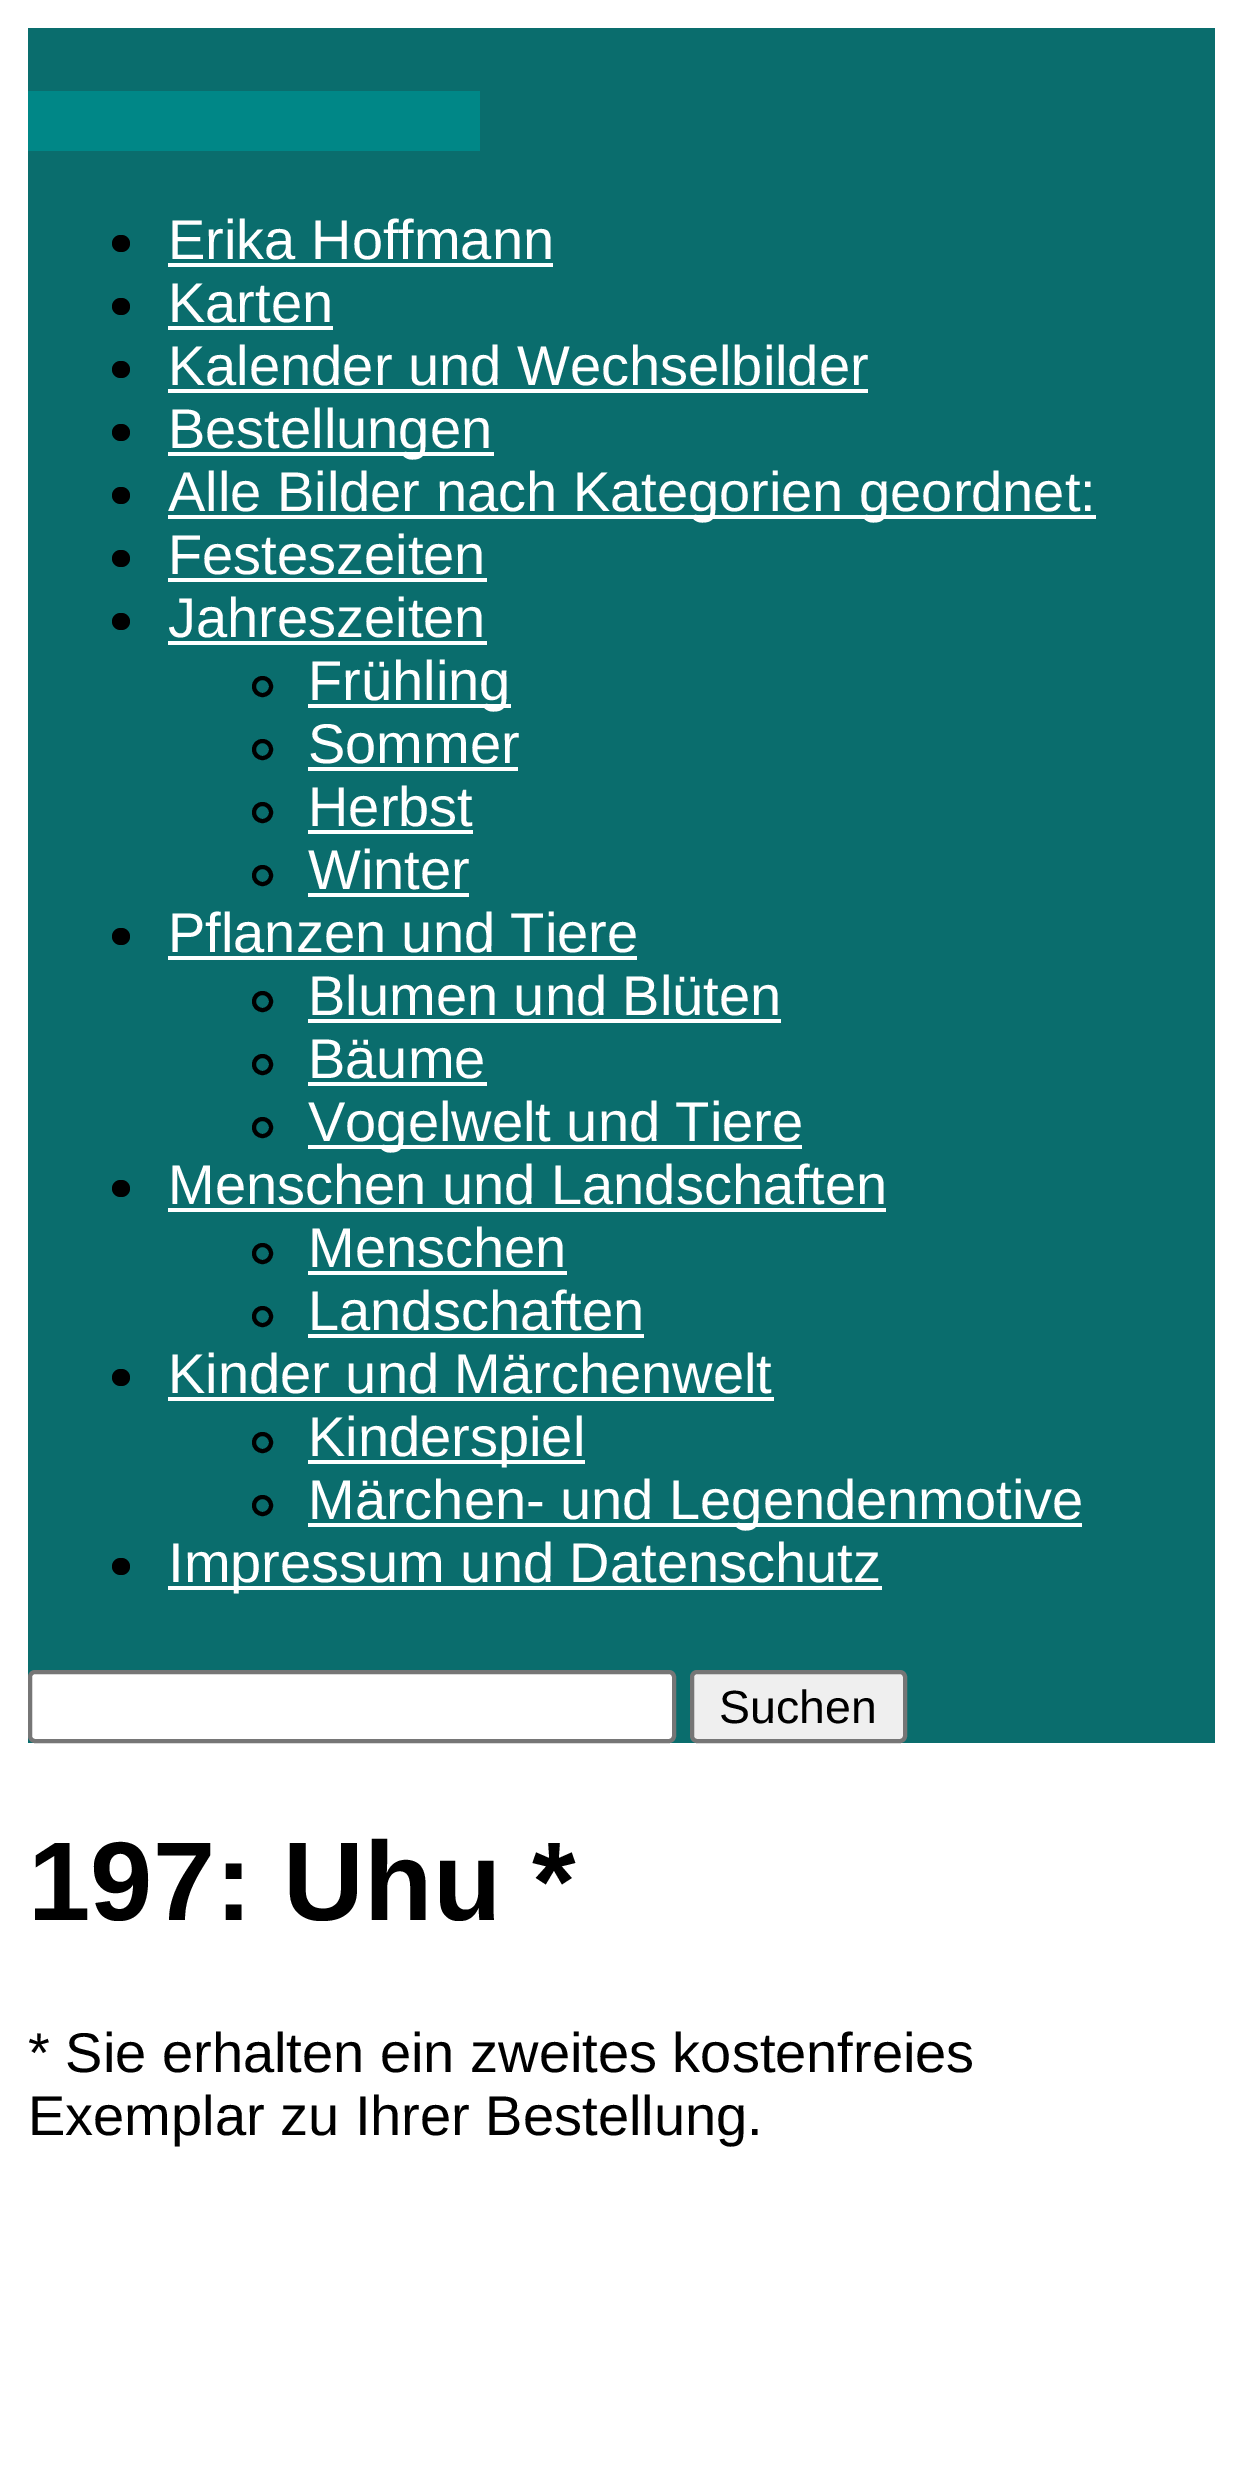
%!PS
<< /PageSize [1240 2480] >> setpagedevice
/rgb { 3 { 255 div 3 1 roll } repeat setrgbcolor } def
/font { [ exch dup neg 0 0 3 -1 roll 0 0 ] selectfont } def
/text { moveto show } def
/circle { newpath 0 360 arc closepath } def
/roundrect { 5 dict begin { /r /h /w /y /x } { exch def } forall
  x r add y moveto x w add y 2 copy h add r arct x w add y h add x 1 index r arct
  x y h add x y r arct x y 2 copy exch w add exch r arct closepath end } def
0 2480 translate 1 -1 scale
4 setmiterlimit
255 255 255 rgb
0 0 1240 2480 rectfill
10 109 109 rgb
28 28 1187 1715 rectfill
0 135 135 rgb
28 91 452 60 rectfill
0 0 0 rgb
112 235 18 17 8.5 roundrect fill
255 255 255 rgb
168 263 385 4 rectfill
0 0 0 rgb
112 298 18 17 8.5 roundrect fill
255 255 255 rgb
168 326 165 4 rectfill
0 0 0 rgb
112 361 18 17 8.5 roundrect fill
255 255 255 rgb
168 389 700 4 rectfill
0 0 0 rgb
112 424 18 17 8.5 roundrect fill
255 255 255 rgb
168 452 326 4 rectfill
0 0 0 rgb
112 487 18 17 8.5 roundrect fill
255 255 255 rgb
168 515 928 4 rectfill
0 0 0 rgb
112 550 18 17 8.5 roundrect fill
255 255 255 rgb
168 578 319 4 rectfill
0 0 0 rgb
112 613 18 17 8.5 roundrect fill
255 255 255 rgb
168 641 319 4 rectfill
0 0 0 rgb
4 setlinewidth
262.5 686.5 8.5 circle stroke
255 255 255 rgb
308 704 203 4 rectfill
0 0 0 rgb
262.5 749.5 8.5 circle stroke
255 255 255 rgb
308 767 210 4 rectfill
0 0 0 rgb
262.5 812.5 8.5 circle stroke
255 255 255 rgb
308 830 165 4 rectfill
0 0 0 rgb
262.5 875.5 8.5 circle stroke
255 255 255 rgb
308 893 161 4 rectfill
0 0 0 rgb
112 928 18 17 8.5 roundrect fill
255 255 255 rgb
168 956 469 4 rectfill
0 0 0 rgb
262.5 1001.5 8.5 circle stroke
255 255 255 rgb
308 1019 473 4 rectfill
0 0 0 rgb
262.5 1064.5 8.5 circle stroke
255 255 255 rgb
308 1082 179 4 rectfill
0 0 0 rgb
262.5 1127.5 8.5 circle stroke
255 255 255 rgb
308 1145 494 4 rectfill
0 0 0 rgb
112 1180 18 17 8.5 roundrect fill
255 255 255 rgb
168 1208 718 4 rectfill
0 0 0 rgb
262.5 1253.5 8.5 circle stroke
255 255 255 rgb
308 1271 259 4 rectfill
0 0 0 rgb
262.5 1316.5 8.5 circle stroke
255 255 255 rgb
308 1334 336 4 rectfill
0 0 0 rgb
112 1369 18 17 8.5 roundrect fill
255 255 255 rgb
168 1397 606 4 rectfill
0 0 0 rgb
262.5 1442.5 8.5 circle stroke
255 255 255 rgb
308 1460 277 4 rectfill
0 0 0 rgb
262.5 1505.5 8.5 circle stroke
255 255 255 rgb
308 1523 774 4 rectfill
0 0 0 rgb
112 1558 18 17 8.5 roundrect fill
255 255 255 rgb
168 1586 714 4 rectfill
30 1672 644 69 5 roundrect gsave fill grestore
118 118 118 rgb
stroke
239 239 239 rgb
692 1672 213 69 5 roundrect gsave fill grestore
118 118 118 rgb
stroke
/LiberationSans-Regular 56 font
255 255 255 rgb
(Erika Hoffmann) 168 259 text
(Karten) 168 322 text
(Kalender und Wechselbilder) 168 385 text
(Bestellungen) 168 448 text
(Alle Bilder nach Kategorien geordnet:) 168 511 text
(Festeszeiten) 168 574 text
(Jahreszeiten) 168 637 text
(Frühling) 308 700 text
(Sommer) 308 763 text
(Herbst) 308 826 text
(Winter) 308 889 text
(Pflanzen und Tiere) 168 952 text
(Blumen und Blüten) 308 1015 text
(Bäume) 308 1078 text
(Vogelwelt und Tiere) 308 1141 text
(Menschen und Landschaften) 168 1204 text
(Menschen) 308 1267 text
(Landschaften) 308 1330 text
(Kinder und Märchenwelt) 168 1393 text
(Kinderspiel) 308 1456 text
(Märchen- und Legendenmotive) 308 1519 text
(Impressum und Datenschutz) 168 1582 text
/LiberationSans-Regular 46.5 font
0 0 0 rgb
(Suchen) 719 1723 text
/LiberationSans-Bold 112 font
(197: Uhu *) 28 1920 text
/LiberationSans-Regular 56 font
(* Sie erhalten ein zweites kostenfreies) 28 2072 text
(Exemplar zu Ihrer Bestellung.) 28 2135 text
showpage
